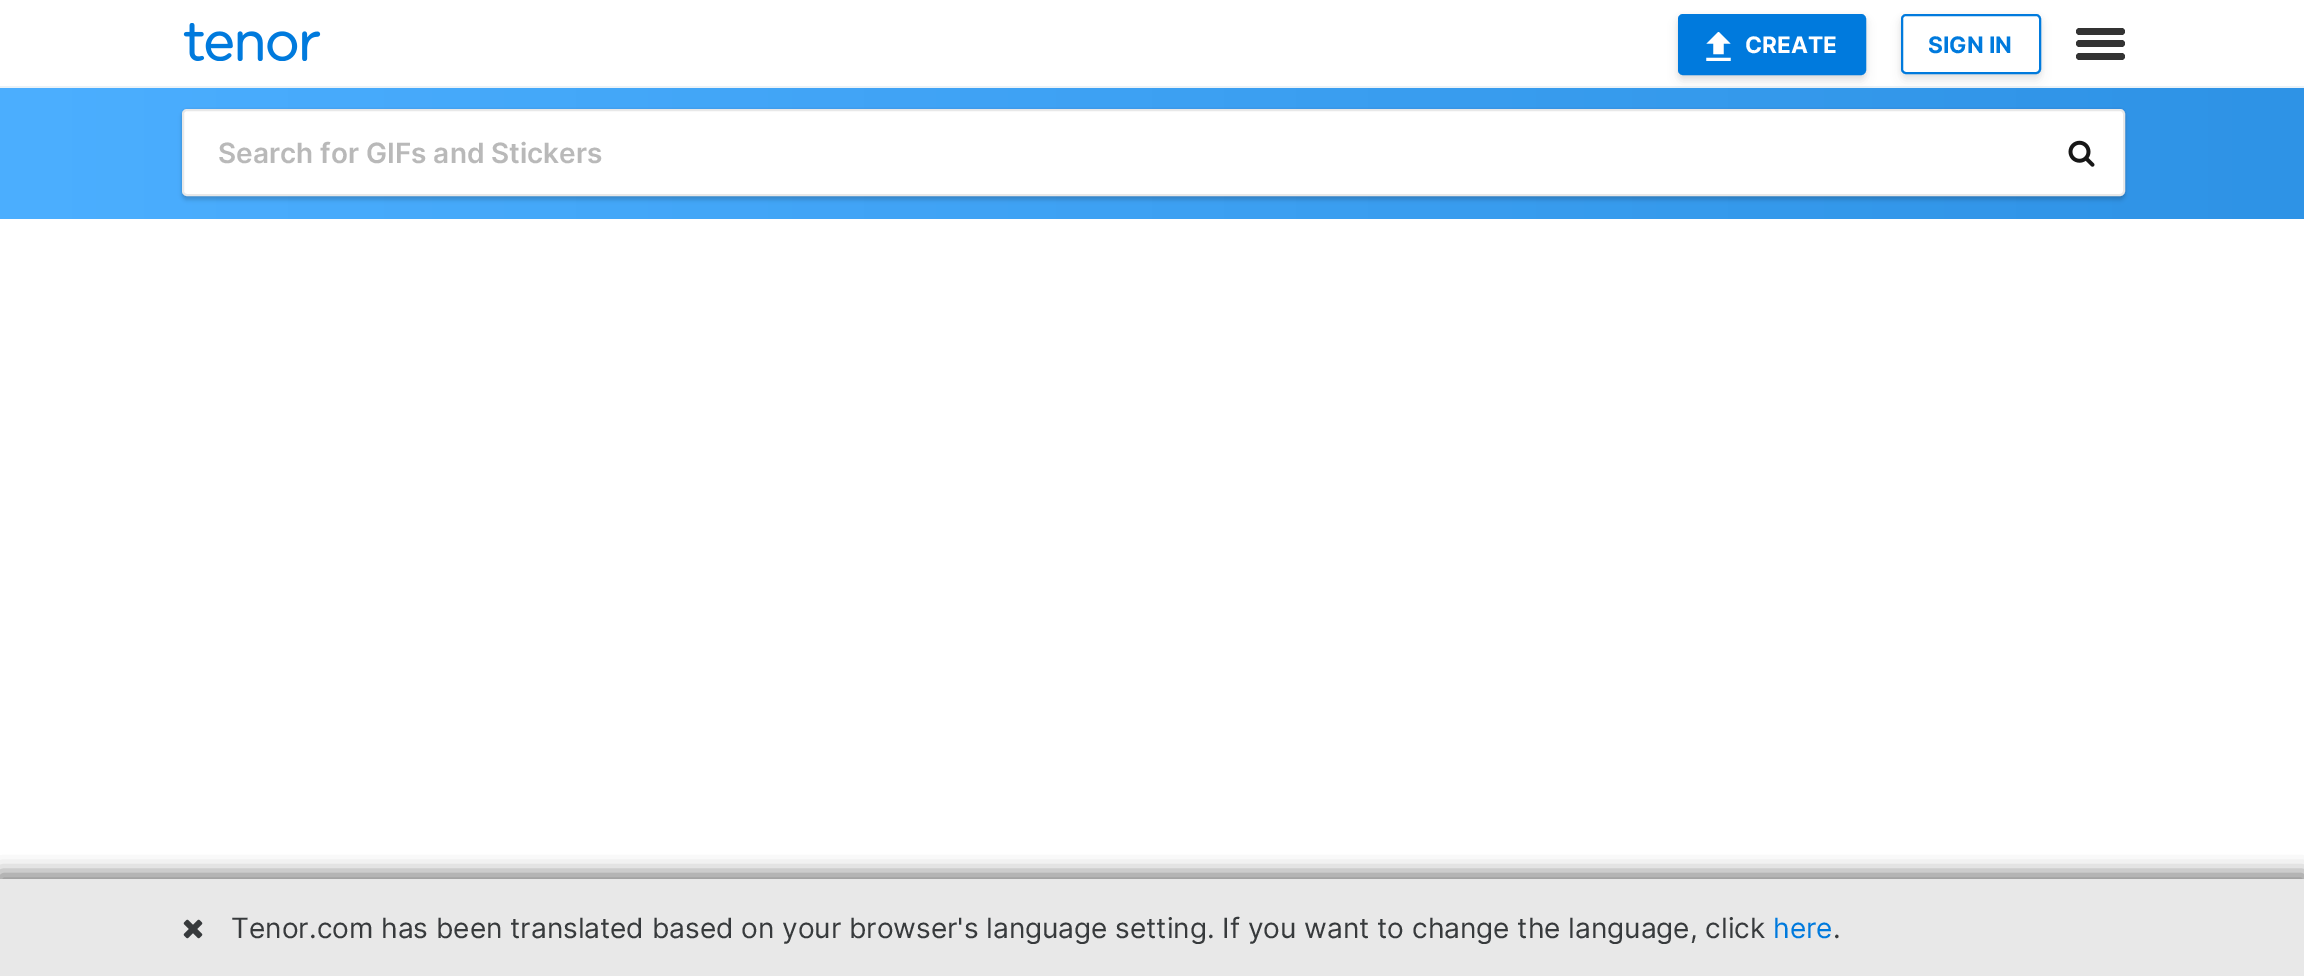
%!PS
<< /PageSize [2304 976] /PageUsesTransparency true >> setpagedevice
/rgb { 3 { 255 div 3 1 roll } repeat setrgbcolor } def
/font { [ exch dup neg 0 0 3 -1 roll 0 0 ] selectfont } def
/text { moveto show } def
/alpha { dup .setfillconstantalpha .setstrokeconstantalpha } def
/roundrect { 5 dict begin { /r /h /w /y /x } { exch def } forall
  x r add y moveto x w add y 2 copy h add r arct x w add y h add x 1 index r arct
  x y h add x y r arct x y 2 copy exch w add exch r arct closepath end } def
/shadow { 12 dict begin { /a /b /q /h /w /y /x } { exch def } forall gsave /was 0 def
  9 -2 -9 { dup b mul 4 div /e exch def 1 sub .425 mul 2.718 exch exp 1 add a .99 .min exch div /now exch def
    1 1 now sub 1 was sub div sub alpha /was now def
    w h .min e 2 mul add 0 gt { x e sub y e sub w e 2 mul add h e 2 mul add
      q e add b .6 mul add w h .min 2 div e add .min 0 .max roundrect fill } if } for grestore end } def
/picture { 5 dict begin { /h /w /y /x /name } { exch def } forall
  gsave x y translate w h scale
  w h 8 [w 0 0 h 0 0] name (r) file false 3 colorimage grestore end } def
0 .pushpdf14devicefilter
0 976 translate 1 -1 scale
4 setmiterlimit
255 255 255 rgb
0 0 2304 976 rectfill
235 242 247 rgb
0 86 2304 2 rectfill
(img_01.rgb) 183 23 138 38 picture
83 83 92 rgb
1678 21 188 61 5 5 0.11 shadow
0 0 0 rgb
1678 16 188 61 5 2.5 0.08 shadow
0 122 221 rgb
1679 15 186 59 4 roundrect gsave fill grestore
2 setlinewidth
stroke
(img_02.rgb) 1706 32 25 29 picture
83 83 92 rgb
1901 21 140 60 5 5 0.11 shadow
0 0 0 rgb
1901 16 140 59 5 2.5 0.08 shadow
255 255 255 rgb
1902 15 138 58 4 roundrect gsave fill grestore
0 122 221 rgb
stroke
51 51 51 rgb
2076 40 49 7 3.5 roundrect fill
2076 28 49 7 3.5 roundrect fill
2076 53 49 7 3.5 roundrect fill
gsave 0 88 moveto 2304 0 rlineto 0 131 rlineto -2304 0 rlineto closepath clip newpath
<< /ShadingType 2 /ColorSpace /DeviceRGB /Coords [0 153 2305 153] /Extend [true true] /Function << /FunctionType 2 /Domain [0 1] /C0 [0.298 0.686 1] /C1 [0.18 0.576 0.902] /N 1 >> >> shfill grestore
0 0 0 rgb
182 109 1943 87 5 1 0.08 shadow
182 112 1943 88 5 2 0.16 shadow
255 255 255 rgb
183 110 1941 85 4 roundrect gsave fill grestore
232 232 232 rgb
stroke
(img_03.rgb) 2068 140 27 27 picture
153 153 153 rgb
0 875 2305 98 0 9 1 shadow
0 875 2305 98 0 9 1 shadow
232 232 232 rgb
0 879 2304 97 rectfill
(img_04.rgb) 183 919 20 20 picture
/Inter-Bold 22.75 font
255 255 255 rgb
(CREATE) 1745 53 text
0 122 221 rgb
(SIGN IN) 1928 53 text
/Inter-SemiBold 28 font
185 185 185 rgb
(Search for GIFs and Stickers) 218 163 text
/Inter-Regular 28 font
55 58 60 rgb
(Tenor.com has been translated based on your browser's language setting. If you want to change the language, click) 231 938 text
0 122 221 rgb
(here) 1773 938 text
55 58 60 rgb
(.) 1833 938 text
.poppdf14devicefilter showpage
